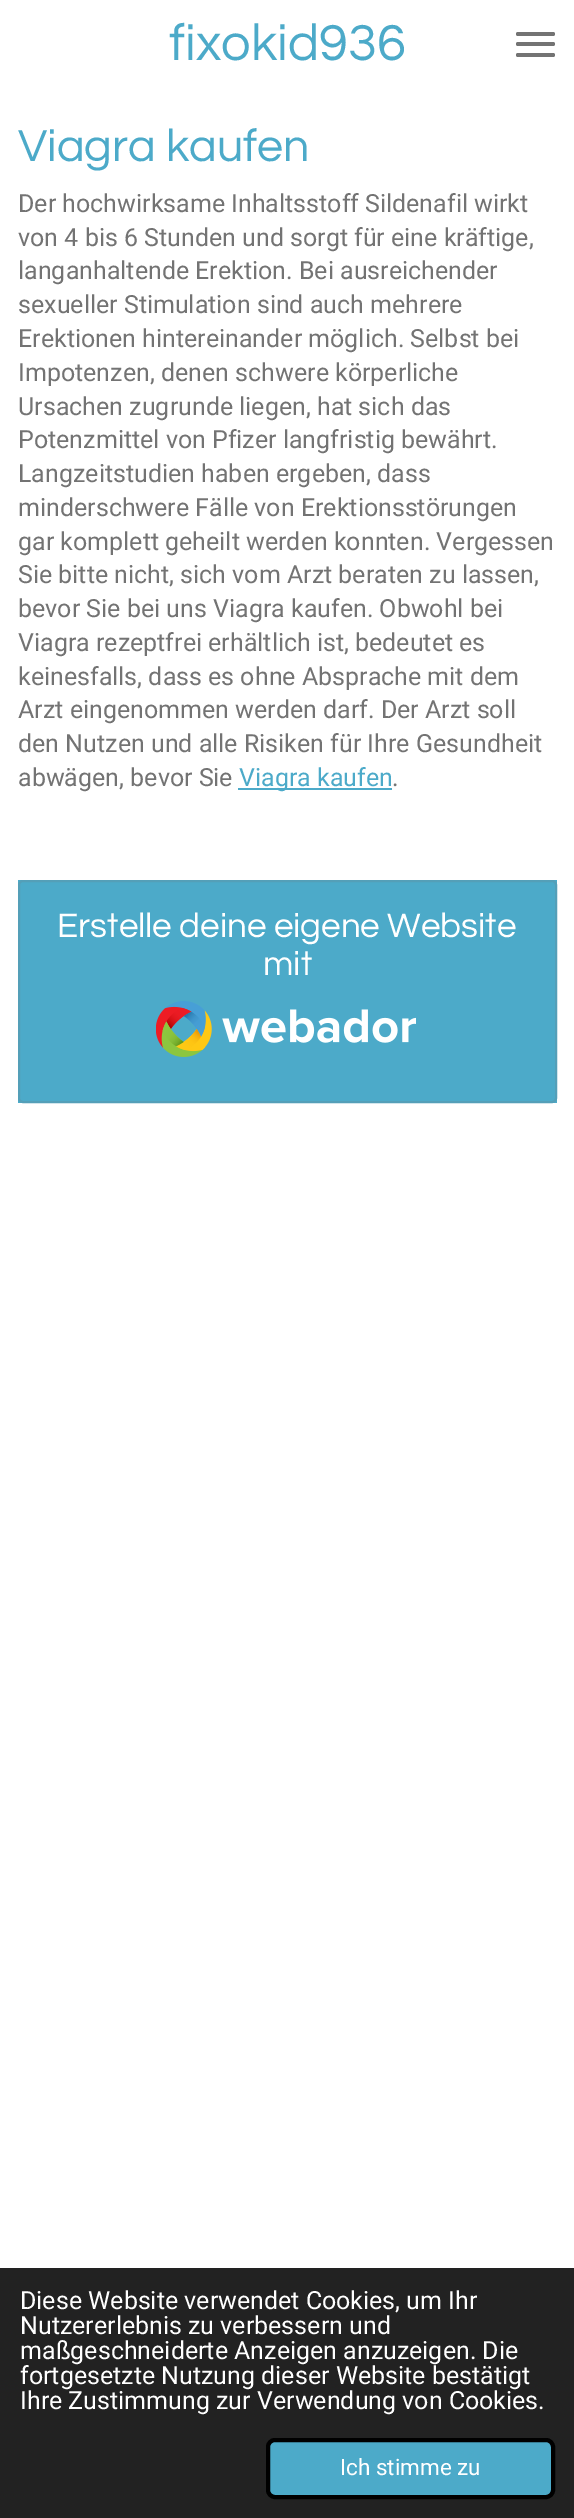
%!PS
<< /PageSize [574 2518] >> setpagedevice
/rgb { 3 { 255 div 3 1 roll } repeat setrgbcolor } def
/font { [ exch dup neg 0 0 3 -1 roll 0 0 ] selectfont } def
/text { moveto show } def
/roundrect { 5 dict begin { /r /h /w /y /x } { exch def } forall
  x r add y moveto x w add y 2 copy h add r arct x w add y h add x 1 index r arct
  x y h add x y r arct x y 2 copy exch w add exch r arct closepath end } def
/picture { 5 dict begin { /h /w /y /x /name } { exch def } forall
  gsave x y translate w h scale
  w h 8 [w 0 0 h 0 0] name (r) file false 3 colorimage grestore end } def
0 2518 translate 1 -1 scale
4 setmiterlimit
255 255 255 rgb
0 0 574 2518 rectfill
115 115 115 rgb
516 42 39 4 2 roundrect fill
516 32 39 4 2 roundrect fill
516 53 39 4 2 roundrect fill
76 170 201 rgb
238 788 154 2 rectfill
18 880 539 223 rectfill
84 159 184 rgb
2 setlinewidth
19 881 537 221 4 roundrect stroke
(img_01.rgb) 156 1001 260 56 picture
34 34 34 rgb
0 2268 574 250 rectfill
76 170 201 rgb
268 2440 285 57 7 roundrect gsave fill grestore
0 0 0 rgb
4 setlinewidth
stroke
/Questrial-Regular 52.5 font
76 170 201 rgb
(fixokid936) 169 60 text
/Questrial-Regular 46.5 font
(Viagra kaufen) 18 161 text
/Roboto-Regular 25 font
115 115 115 rgb
(Der hochwirksame Inhaltsstoff Sildenafil wirkt) 18 212 text
(von 4 bis 6 Stunden und sorgt für eine kräftige,) 18 246 text
(langanhaltende Erektion. Bei ausreichender) 18 279 text
(sexueller Stimulation sind auch mehrere) 18 313 text
(Erektionen hintereinander möglich. Selbst bei) 18 347 text
(Impotenzen, denen schwere körperliche) 18 381 text
(Ursachen zugrunde liegen, hat sich das) 18 415 text
(Potenzmittel von Pfizer langfristig bewährt.) 18 448 text
(Langzeitstudien haben ergeben, dass) 18 482 text
(minderschwere Fälle von Erektionsstörungen) 18 516 text
(gar komplett geheilt werden konnten. Vergessen) 18 550 text
(Sie bitte nicht, sich vom Arzt beraten zu lassen,) 18 583 text
(bevor Sie bei uns Viagra kaufen. Obwohl bei) 18 617 text
(Viagra rezeptfrei erhältlich ist, bedeutet es) 18 651 text
(keinesfalls, dass es ohne Absprache mit dem) 18 685 text
(Arzt eingenommen werden darf. Der Arzt soll) 18 718 text
(den Nutzen und alle Risiken für Ihre Gesundheit) 18 752 text
(abwägen, bevor Sie) 18 786 text
76 170 201 rgb
(Viagra kaufen) 239 786 text
115 115 115 rgb
(.) 392 786 text
/Questrial-Regular 35 font
255 255 255 rgb
(Erstelle deine eigene Website) 57 937 text
(mit) 263 975 text
/Roboto-Regular 25 font
(Diese Website verwendet Cookies, um Ihr) 20 2309 text
(Nutzererlebnis zu verbessern und) 20 2334 text
(maßgeschneiderte Anzeigen anzuzeigen. Die) 20 2359 text
(fortgesetzte Nutzung dieser Website bestätigt) 20 2384 text
(Ihre Zustimmung zur Verwendung von Cookies.) 20 2409 text
/Roboto-Regular 22.5 font
(Ich stimme zu) 340 2475 text
showpage
